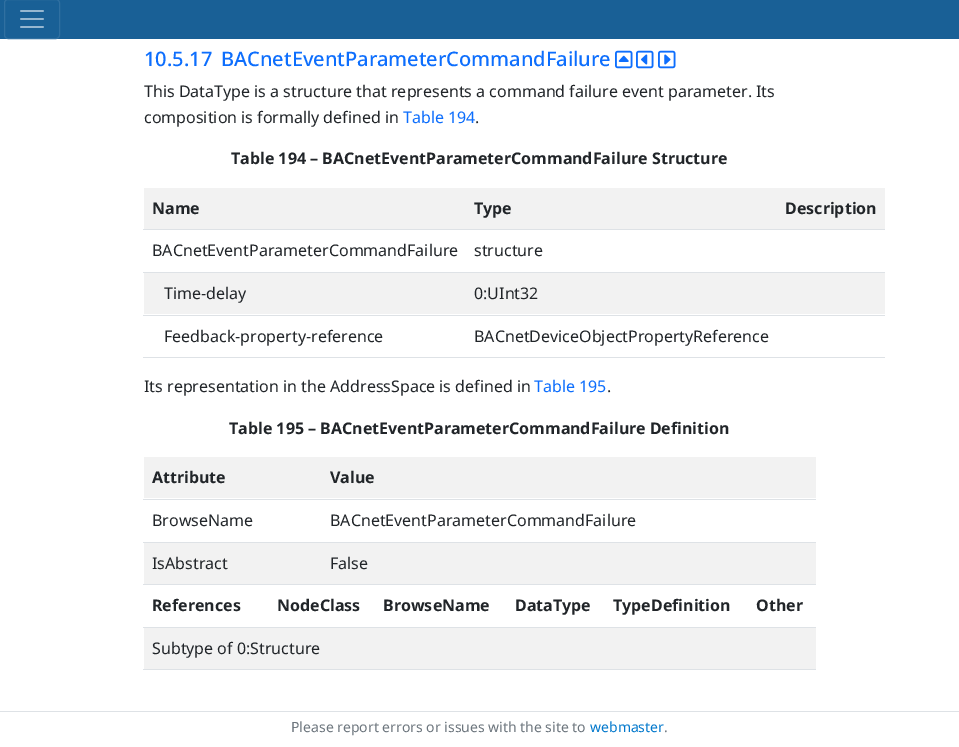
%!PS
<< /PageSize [959 747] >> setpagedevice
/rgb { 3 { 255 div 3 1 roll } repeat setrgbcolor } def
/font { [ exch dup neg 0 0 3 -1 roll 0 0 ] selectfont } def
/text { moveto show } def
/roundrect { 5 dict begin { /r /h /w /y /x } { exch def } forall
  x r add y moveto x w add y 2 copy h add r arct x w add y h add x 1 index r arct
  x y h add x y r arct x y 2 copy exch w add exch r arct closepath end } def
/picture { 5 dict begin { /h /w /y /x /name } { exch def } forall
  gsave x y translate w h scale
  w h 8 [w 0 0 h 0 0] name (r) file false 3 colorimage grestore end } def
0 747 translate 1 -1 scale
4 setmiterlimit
255 255 255 rgb
0 0 959 747 rectfill
25 96 150 rgb
0 0 959 39 rectfill
48 112 161 rgb
4.5 -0.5 55 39 3.5 roundrect stroke
(img_01.rgb) 20 10 24 18 picture
(img_02.rgb) 615 50 18 19 picture
(img_03.rgb) 636 50 18 19 picture
(img_04.rgb) 658 50 18 19 picture
242 242 242 rgb
144 188 741 41 rectfill
222 226 230 rgb
143 229 742 1 rectfill
143 272 742 1 rectfill
242 242 242 rgb
144 273 741 41 rectfill
222 226 230 rgb
143 315 742 1 rectfill
143 357 742 1 rectfill
242 242 242 rgb
144 457 672 41 rectfill
222 226 230 rgb
143 499 673 1 rectfill
143 542 673 1 rectfill
242 242 242 rgb
144 543 672 41 rectfill
222 226 230 rgb
143 584 673 1 rectfill
143 627 673 1 rectfill
242 242 242 rgb
144 628 672 41 rectfill
222 226 230 rgb
143 669 673 1 rectfill
0 711 959 1 rectfill
/NotoSans-Medium 20 font
13 110 253 rgb
(10.5.17) 144 66 text
(BACnetEventParameterCommandFailure) 221 66 text
/NotoSans-Regular 16 font
33 37 41 rgb
(This DataType is a structure that represents a command failure event parameter. Its) 144 97 text
(composition is formally defined in) 144 123 text
13 110 253 rgb
(Table 194) 403 123 text
33 37 41 rgb
(.) 475 123 text
/NotoSans-Bold 16 font
(Table 194 – BACnetEventParameterCommandFailure Structure) 231 164 text
(Name) 152 214 text
(Type) 474 214 text
(Description) 785 214 text
/NotoSans-Regular 16 font
(BACnetEventParameterCommandFailure) 152 256 text
(structure) 474 256 text
(Time-delay) 164 299 text
(0:UInt32) 474 299 text
(Feedback-property-reference) 164 342 text
(BACnetDeviceObjectPropertyReference) 474 342 text
(Its representation in the AddressSpace is defined in) 144 392 text
13 110 253 rgb
(Table 195) 534 392 text
33 37 41 rgb
(.) 607 392 text
/NotoSans-Bold 16 font
(Table 195 – BACnetEventParameterCommandFailure Definition) 229 434 text
(Attribute) 152 483 text
(Value) 330 483 text
/NotoSans-Regular 16 font
(BrowseName) 152 526 text
(BACnetEventParameterCommandFailure) 330 526 text
(IsAbstract) 152 569 text
(False) 330 569 text
/NotoSans-Bold 16 font
(References) 152 611 text
(NodeClass) 277 611 text
(BrowseName) 383 611 text
(DataType) 515 611 text
(TypeDefinition) 613 611 text
(Other) 756 611 text
/NotoSans-Regular 16 font
(Subtype of 0:Structure) 152 654 text
/NotoSans-Regular 14 font
108 117 125 rgb
(Please report errors or issues with the site to) 291 732 text
0 119 204 rgb
(webmaster) 590 732 text
108 117 125 rgb
(.) 664 732 text
showpage
